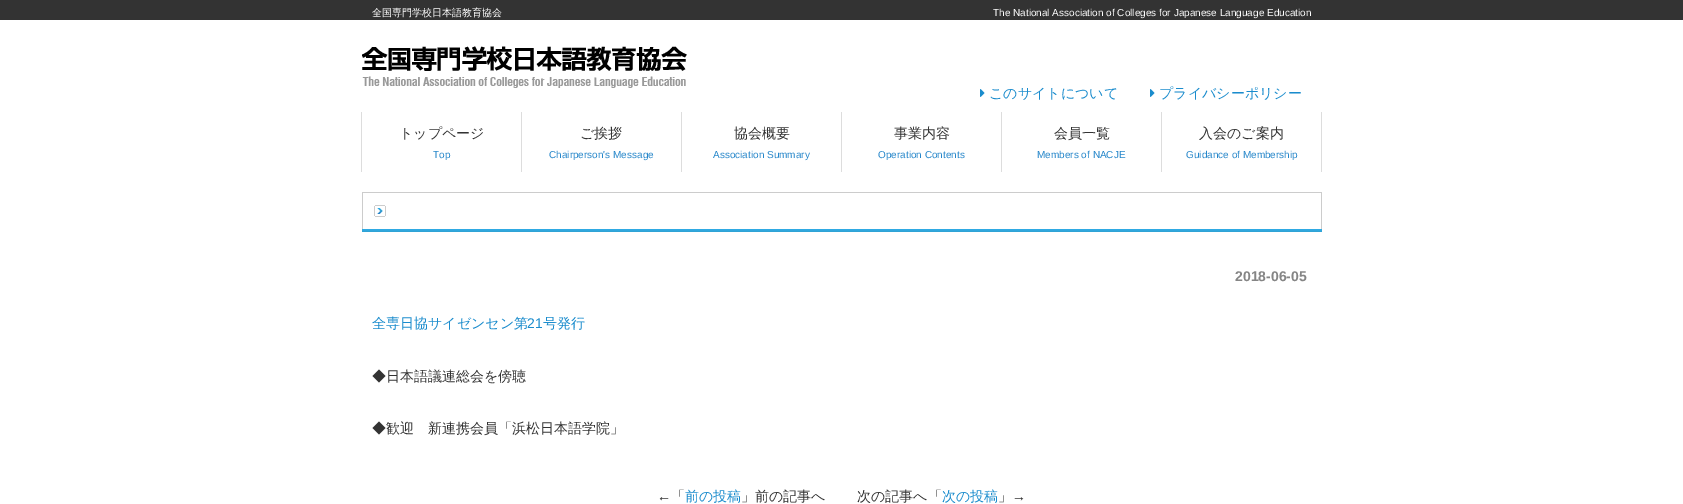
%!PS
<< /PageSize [1683 504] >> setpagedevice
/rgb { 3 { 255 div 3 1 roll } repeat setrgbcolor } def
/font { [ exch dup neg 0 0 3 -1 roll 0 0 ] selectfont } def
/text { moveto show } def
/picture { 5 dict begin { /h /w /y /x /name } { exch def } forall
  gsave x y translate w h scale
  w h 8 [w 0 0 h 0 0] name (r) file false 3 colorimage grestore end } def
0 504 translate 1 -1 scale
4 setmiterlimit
255 255 255 rgb
0 0 1683 504 rectfill
51 51 51 rgb
0 0 1683 20 rectfill
(img_01.rgb) 362 46 325 42 picture
(img_02.rgb) 980 89 5 8 picture
(img_02.rgb) 1150 89 5 8 picture
221 221 221 rgb
361 112 1 60 rectfill
521 112 1 60 rectfill
681 112 1 60 rectfill
841 112 1 60 rectfill
1001 112 1 60 rectfill
1161 112 1 60 rectfill
1321 112 1 60 rectfill
(img_03.rgb) 362 192 960 40 picture
/WenQuanYiZenHei-Medium 10 font
255 255 255 rgb
(全国専門学校日本語教育協会) 372 16 text
/LiberationSans-Regular 10 font
(The National Association of Colleges for Japanese Language Education) 993 16 text
/WenQuanYiZenHei-Medium 14 font
26 140 205 rgb
(このサイトについて) 989 98 text
(プライバシーポリシー) 1159 98 text
51 51 51 rgb
(トップページ) 399 138 text
/LiberationSans-Regular 10 font
37 134 202 rgb
(Top) 433 158 text
/WenQuanYiZenHei-Medium 14 font
51 51 51 rgb
(ご挨拶) 580 138 text
/LiberationSans-Regular 10 font
37 134 202 rgb
(Chairperson's Message) 549 158 text
/WenQuanYiZenHei-Medium 14 font
51 51 51 rgb
(協会概要) 734 138 text
/LiberationSans-Regular 10 font
37 134 202 rgb
(Association Summary) 713 158 text
/WenQuanYiZenHei-Medium 14 font
51 51 51 rgb
(事業内容) 894 138 text
/LiberationSans-Regular 10 font
37 134 202 rgb
(Operation Contents) 878 158 text
/WenQuanYiZenHei-Medium 14 font
51 51 51 rgb
(会員一覧) 1054 138 text
/LiberationSans-Regular 10 font
37 134 202 rgb
(Members of NACJE) 1037 158 text
/WenQuanYiZenHei-Medium 14 font
51 51 51 rgb
(入会のご案内) 1199 138 text
/LiberationSans-Regular 10 font
37 134 202 rgb
(Guidance of Membership) 1186 158 text
/LiberationSans-Bold 14 font
133 133 133 rgb
(2018-06-05) 1235 281 text
/WenQuanYiZenHei-Medium 14 font
26 140 205 rgb
(全専日協サイゼンセン第) 372 328 text
/LiberationSans-Regular 14 font
(21) 527 328 text
/WenQuanYiZenHei-Medium 14 font
(号発行) 543 328 text
51 51 51 rgb
(◆日本語議連総会を傍聴) 372 381 text
(◆歓迎　新連携会員「浜松日本語学院」) 372 433 text
/LiberationSans-Regular 14 font
(←) 657 501 text
/WenQuanYiZenHei-Medium 14 font
(「) 671 501 text
26 140 205 rgb
(前の投稿) 685 501 text
51 51 51 rgb
(」前の記事へ) 741 501 text
(次の記事へ「) 857 501 text
26 140 205 rgb
(次の投稿) 942 501 text
51 51 51 rgb
(」) 998 501 text
/LiberationSans-Regular 14 font
(→) 1012 501 text
showpage
